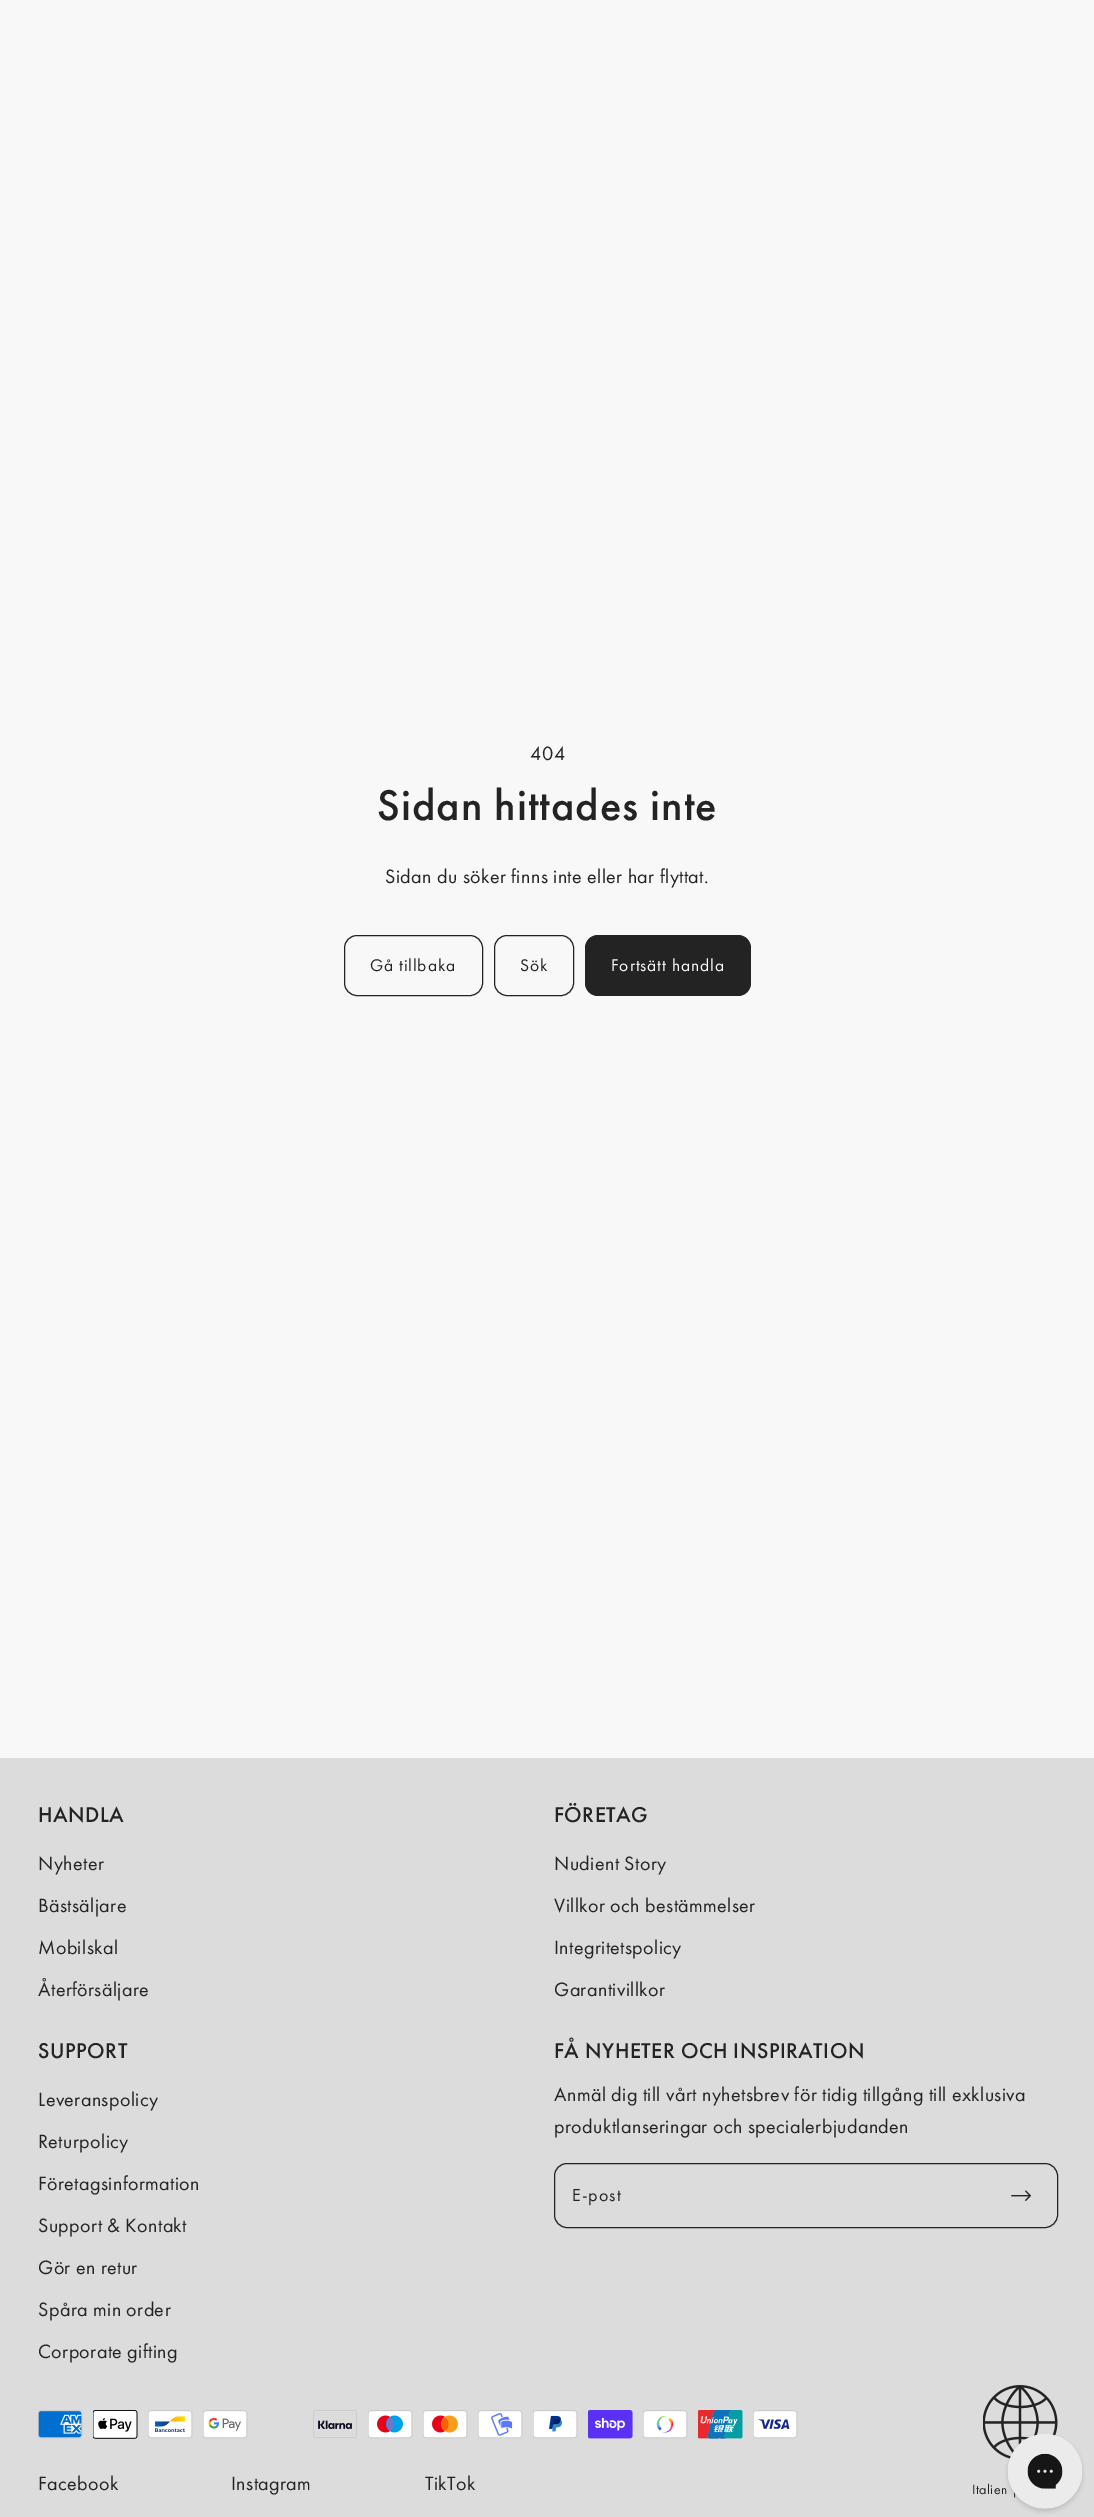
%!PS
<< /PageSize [1094 2517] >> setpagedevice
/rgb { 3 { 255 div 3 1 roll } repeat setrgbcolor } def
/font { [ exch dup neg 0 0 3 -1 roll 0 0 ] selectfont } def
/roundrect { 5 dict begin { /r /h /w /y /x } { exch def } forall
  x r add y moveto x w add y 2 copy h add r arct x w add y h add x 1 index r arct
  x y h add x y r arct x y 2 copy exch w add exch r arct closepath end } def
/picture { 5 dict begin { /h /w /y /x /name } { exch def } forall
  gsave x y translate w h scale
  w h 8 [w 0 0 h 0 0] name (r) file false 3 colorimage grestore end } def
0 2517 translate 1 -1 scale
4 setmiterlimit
248 248 248 rgb
0 0 1094 2517 rectfill
35 35 35 rgb
344.5 935.5 138 60 12.5 roundrect stroke
494.5 935.5 79 60 12.5 roundrect stroke
585 935 166 61 13 roundrect fill
220 220 220 rgb
0 1758 1094 759 rectfill
35 35 35 rgb
554.5 2163.5 503 64 12.5 roundrect stroke
(img_01.rgb) 1011 2190 20 11 picture
(img_02.rgb) 38 2410 45 29 picture
(img_03.rgb) 93 2410 45 29 picture
(img_04.rgb) 148 2410 45 29 picture
(img_05.rgb) 203 2410 45 29 picture
(img_06.rgb) 313 2410 44 28 picture
(img_07.rgb) 368 2410 45 29 picture
(img_08.rgb) 423 2410 45 29 picture
(img_09.rgb) 478 2410 45 29 picture
(img_10.rgb) 533 2410 45 29 picture
(img_11.rgb) 588 2410 45 29 picture
(img_12.rgb) 643 2410 45 29 picture
(img_13.rgb) 698 2410 45 29 picture
(img_14.rgb) 753 2410 45 29 picture
(img_15.rgb) 983 2385 75 74 picture
/FuturaPT-Regular 20 font
530 760 moveto 0.4 0 (404) ashow
/FuturaPT-Medium 44.5 font
377 820 moveto 0.9 0 (Sidan hittades inte) ashow
/FuturaPT-Regular 20 font
385 883 moveto 0.4 0 (Sidan du söker finns inte eller har flyttat.) ashow
/FuturaPT-Regular 17.5 font
370 971 moveto 0.9 0 (Gå tillbaka) ashow
520 971 moveto 0.9 0 (Sök) ashow
255 255 255 rgb
611 971 moveto 0.9 0 (Fortsätt handla) ashow
/FuturaPT-Medium 22.25 font
35 35 35 rgb
38 1822 moveto 0.45 0 (HANDLA) ashow
/FuturaPT-Regular 20 font
38 1870 moveto 0.4 0 (Nyheter) ashow
38 1912 moveto 0.4 0 (Bästsäljare) ashow
38 1954 moveto 0.4 0 (Mobilskal) ashow
38 1996 moveto 0.4 0 (Återförsäljare) ashow
/FuturaPT-Medium 22.25 font
554 1822 moveto 0.45 0 (FÖRETAG) ashow
/FuturaPT-Regular 20 font
554 1870 moveto 0.4 0 (Nudient Story) ashow
554 1912 moveto 0.4 0 (Villkor och bestämmelser) ashow
554 1954 moveto 0.4 0 (Integritetspolicy) ashow
554 1996 moveto 0.4 0 (Garantivillkor) ashow
/FuturaPT-Medium 22.25 font
38 2058 moveto 0.45 0 (SUPPORT) ashow
/FuturaPT-Regular 20 font
38 2106 moveto 0.4 0 (Leveranspolicy) ashow
38 2148 moveto 0.4 0 (Returpolicy) ashow
38 2190 moveto 0.4 0 (Företagsinformation) ashow
38 2232 moveto 0.4 0 (Support & Kontakt) ashow
38 2274 moveto 0.4 0 (Gör en retur) ashow
38 2316 moveto 0.4 0 (Spåra min order) ashow
38 2358 moveto 0.4 0 (Corporate gifting) ashow
/FuturaPT-Medium 22.25 font
554 2058 moveto 0.45 0 (FÅ NYHETER OCH INSPIRATION) ashow
/FuturaPT-Regular 20 font
554 2101 moveto 0.4 0 (Anmäl dig till vårt nyhetsbrev för tidig tillgång till exklusiva) ashow
554 2133 moveto 0.4 0 (produktlanseringar och specialerbjudanden) ashow
/FuturaPT-Regular 18 font
572 2201 moveto 1 0 (E-post) ashow
/FuturaPT-Regular 20 font
38 2490 moveto 0.4 0 (Facebook) ashow
231 2490 moveto 0.4 0 (Instagram) ashow
425 2490 moveto 0.4 0 (TikTok) ashow
/FuturaPT-Regular 14 font
972 2494 moveto 0.4 0 (Italien) ashow
(img_16.rgb) 1005 2434 80 80 picture
showpage
